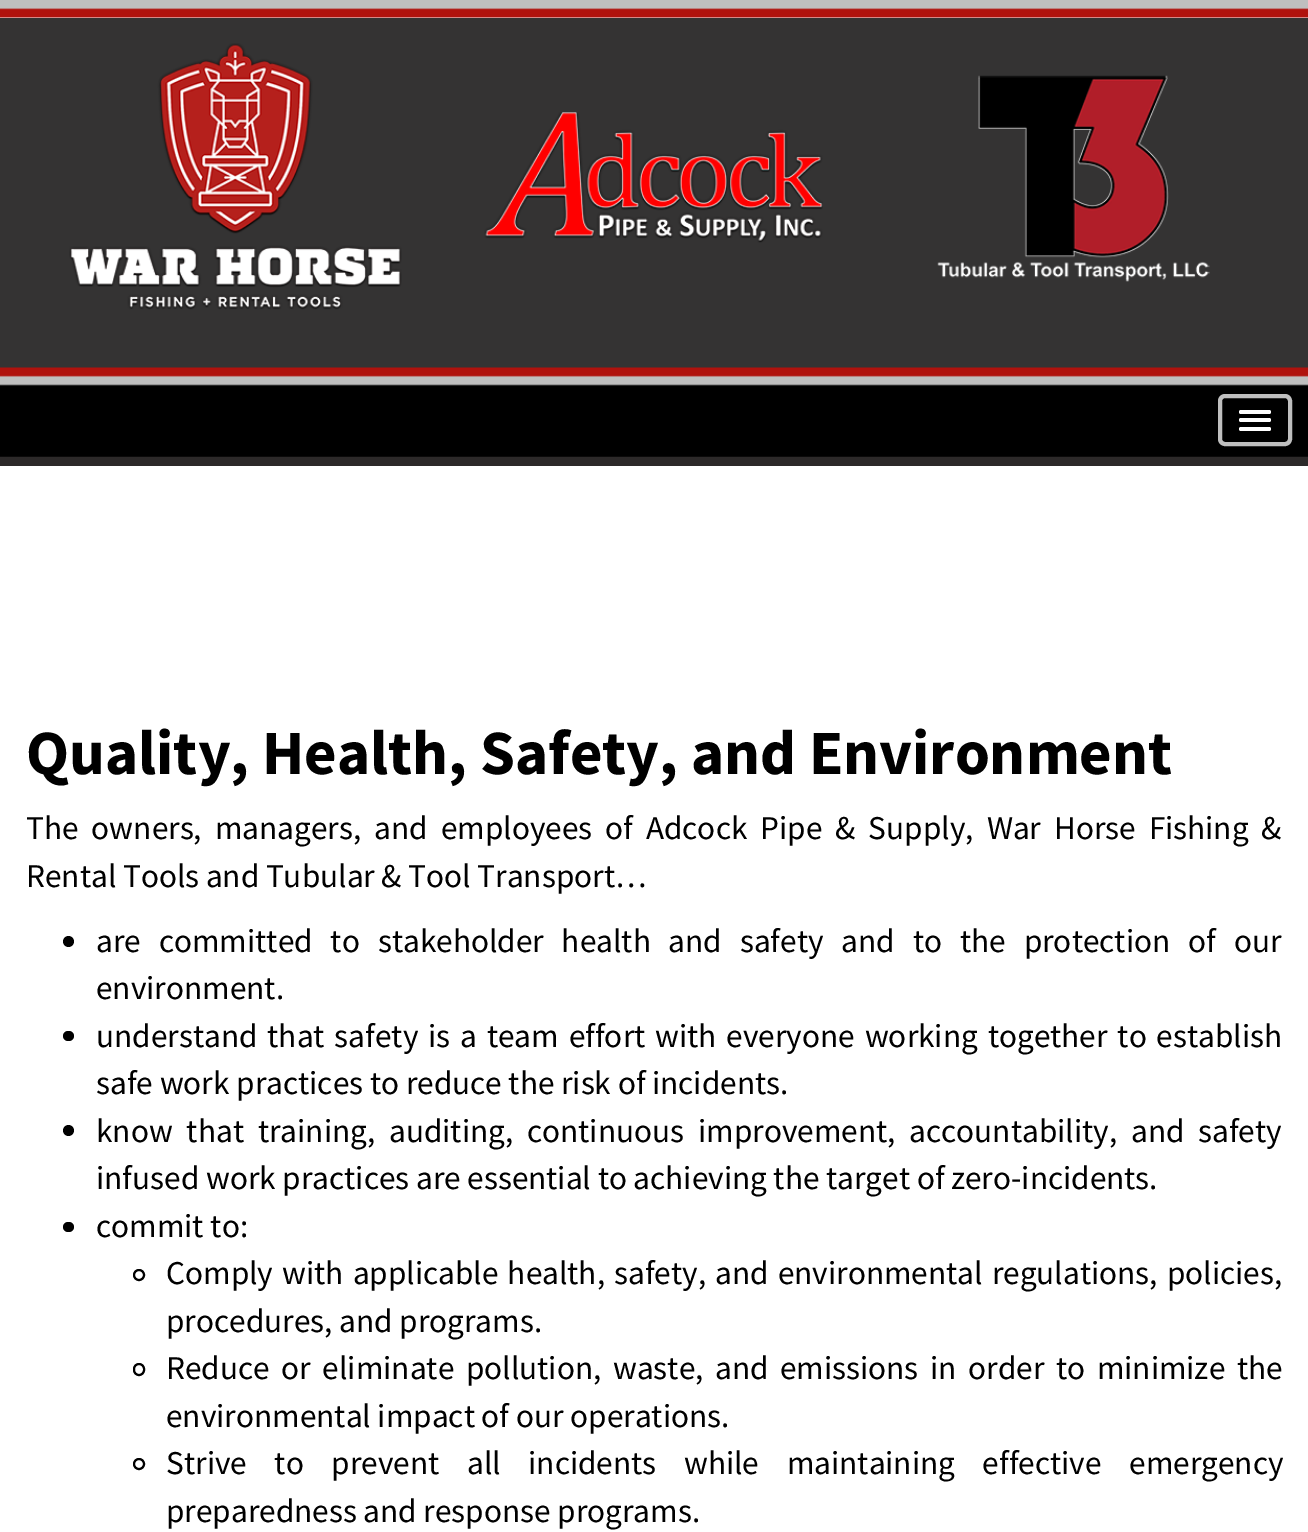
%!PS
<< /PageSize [1308 1532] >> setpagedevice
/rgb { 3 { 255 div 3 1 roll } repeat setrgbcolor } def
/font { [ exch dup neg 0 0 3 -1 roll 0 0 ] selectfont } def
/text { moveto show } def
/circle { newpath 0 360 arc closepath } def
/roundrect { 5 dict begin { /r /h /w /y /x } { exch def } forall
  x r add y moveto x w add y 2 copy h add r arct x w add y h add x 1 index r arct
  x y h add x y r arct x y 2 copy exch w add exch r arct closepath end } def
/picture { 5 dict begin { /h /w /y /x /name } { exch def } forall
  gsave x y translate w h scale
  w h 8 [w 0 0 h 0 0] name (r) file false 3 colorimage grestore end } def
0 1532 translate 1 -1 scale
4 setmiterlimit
255 255 255 rgb
0 0 1308 1532 rectfill
(img_01.rgb) 0 0 1308 18 picture
52 51 51 rgb
0 18 1308 350 rectfill
(img_02.rgb) 69 43 333 267 picture
(img_03.rgb) 484 112 339 131 picture
(img_04.rgb) 937 75 273 207 picture
44 41 41 rgb
0 456 1308 10 rectfill
(img_05.rgb) 0 367 1308 90 picture
191 191 191 rgb
4 setlinewidth
1220 396 70 48 5 roundrect stroke
255 255 255 rgb
1239 410 32 4 2 roundrect fill
1239 418 32 4 2 roundrect fill
1239 427 32 4 2 roundrect fill
0 0 0 rgb
68.5 941.5 5.5 circle fill
63 1031 11 10 5 roundrect fill
68.5 1130.5 5.5 circle fill
63 1222 11 10 5 roundrect fill
2 setlinewidth
139 1275 5 circle stroke
134 1364 10 11 5 roundrect stroke
139 1464 5 circle stroke
/SourceSansPro-Bold 63 font
(Quality, Health, Safety, and Environment) 26 774 text
/SourceSansPro-Regular 33.25 font
26 839 moveto 6.4 0 32 (The owners, managers, and employees of Adcock Pipe & Supply, War Horse Fishing &) widthshow
(Rental Tools and Tubular & Tool Transport…) 26 887 text
96 952 moveto 11.25 0 32 (are committed to stakeholder health and safety and to the protection of our) widthshow
(environment.) 96 999 text
96 1047 moveto 3.25 0 32 (understand that safety is a team effort with everyone working together to establish) widthshow
(safe work practices to reduce the risk of incidents.) 96 1094 text
96 1142 moveto 7.25 0 32 (know that training, auditing, continuous improvement, accountability, and safety) widthshow
(infused work practices are essential to achieving the target of zero-incidents.) 96 1189 text
(commit to:) 96 1237 text
166 1284 moveto 2.5 0 32 (Comply with applicable health, safety, and environmental regulations, policies,) widthshow
(procedures, and programs.) 166 1332 text
166 1379 moveto 5 0 32 (Reduce or eliminate pollution, waste, and emissions in order to minimize the) widthshow
(environmental impact of our operations.) 166 1427 text
166 1474 moveto 21 0 32 (Strive to prevent all incidents while maintaining effective emergency) widthshow
(preparedness and response programs.) 166 1522 text
showpage
